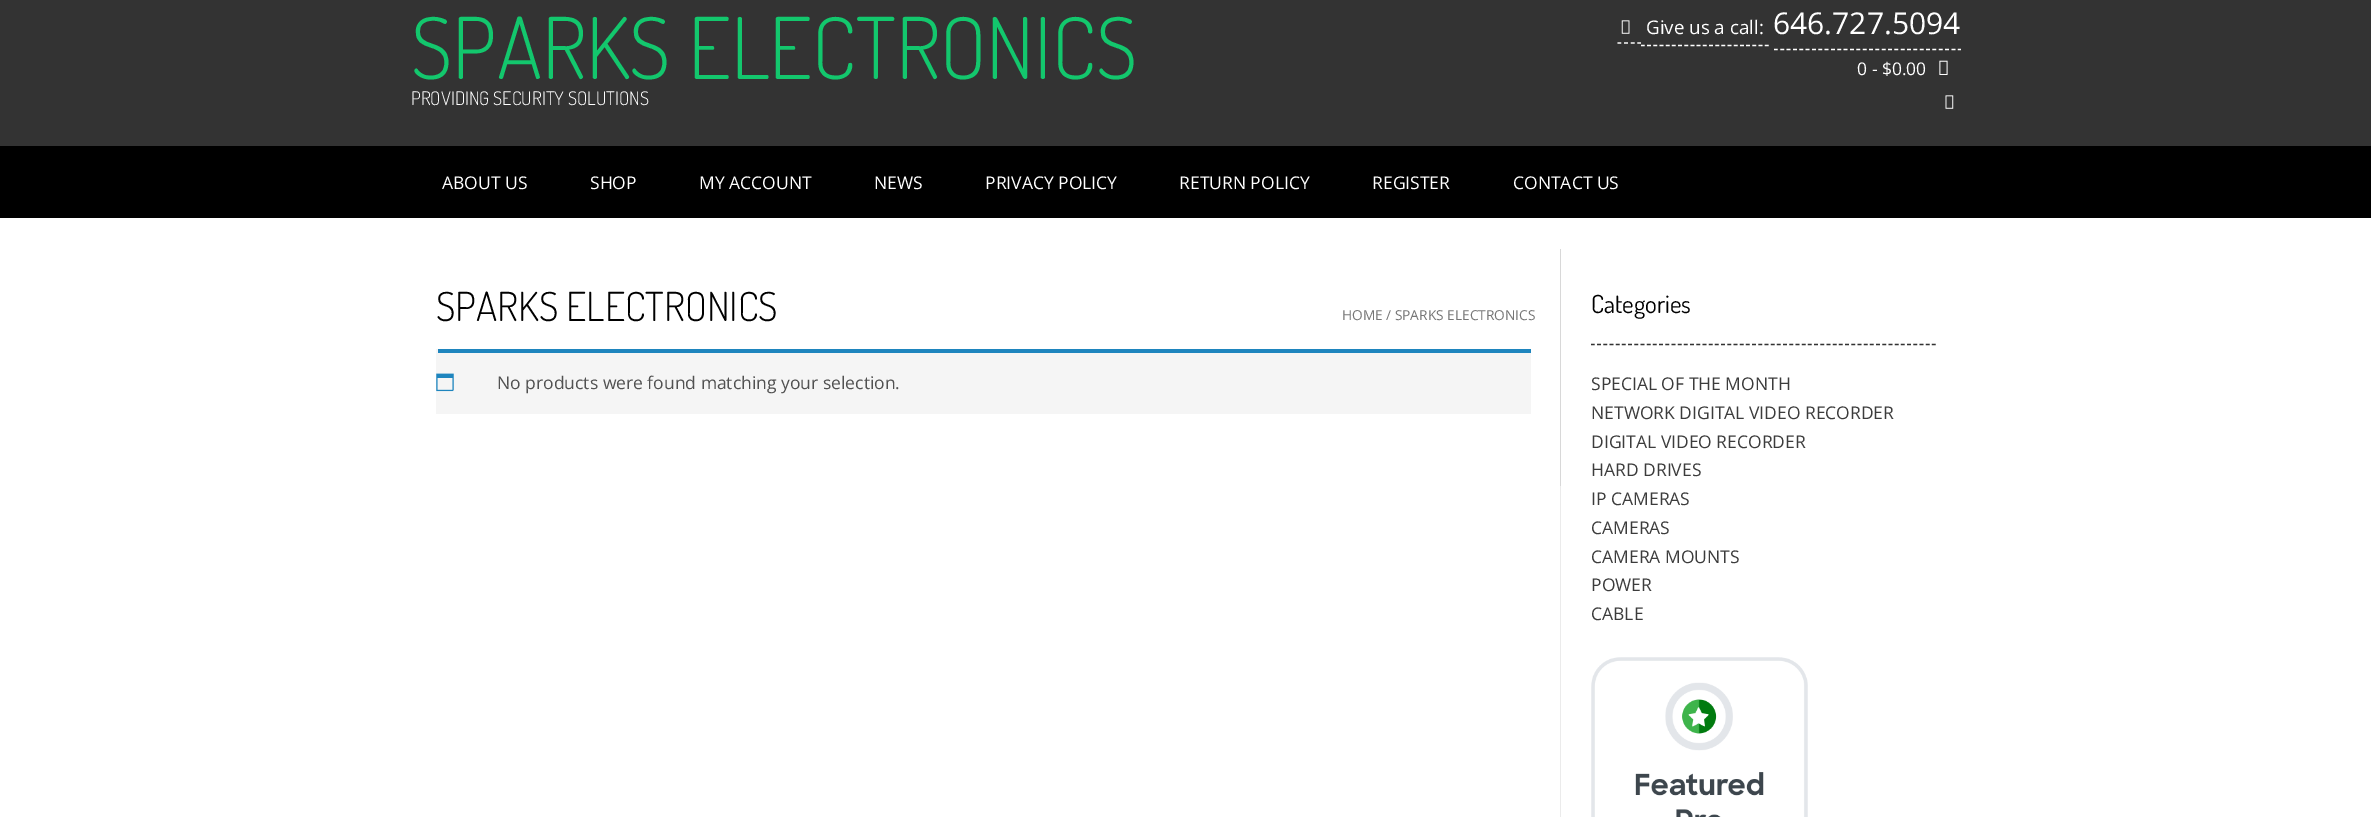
%!PS
<< /PageSize [2371 817] >> setpagedevice
/rgb { 3 { 255 div 3 1 roll } repeat setrgbcolor } def
/font { [ exch dup neg 0 0 3 -1 roll 0 0 ] selectfont } def
/text { moveto show } def
/roundrect { 5 dict begin { /r /h /w /y /x } { exch def } forall
  x r add y moveto x w add y 2 copy h add r arct x w add y h add x 1 index r arct
  x y h add x y r arct x y 2 copy exch w add exch r arct closepath end } def
/picture { 5 dict begin { /h /w /y /x /name } { exch def } forall
  gsave x y translate w h scale
  w h 8 [w 0 0 h 0 0] name (r) file false 3 colorimage grestore end } def
0 817 translate 1 -1 scale
4 setmiterlimit
255 255 255 rgb
0 0 2371 817 rectfill
51 51 51 rgb
0 0 2371 146 rectfill
255 255 255 rgb
1.2 setlinewidth
[3.75 2.91] 0 setdash
1617.5 43 moveto 23.5 0 rlineto stroke
[3.75 2.44] 0 setdash
1641 45.5 moveto 128 0 rlineto stroke
[3.75 2.59] 0 setdash
1774 49.5 moveto 187 0 rlineto stroke
(img_01.rgb) 1621 20 9 14 picture
(img_02.rgb) 1939 60 9 15 picture
(img_03.rgb) 1945 95 9 14 picture
0 0 0 rgb
0 146 2371 72 rectfill
216 216 216 rgb
1560 249 1 237 rectfill
245 245 245 rgb
436 349 1095 65 1 roundrect fill
30 133 190 rgb
438 349 1093 4 rectfill
(img_04.rgb) 436 373 18 19 picture
235 235 235 rgb
1560 486 1 331 rectfill
51 51 51 rgb
[3.75 2.45] 0 setdash
1591 344.5 moveto 345 0 rlineto stroke
(img_05.rgb) 1591 657 217 160 picture
/Dosis-Light 85 font
19 199 109 rgb
(SPARKS ELECTRONICS) 411 79 text
/Dosis-Light 18.75 font
255 255 255 rgb
(PROVIDING SECURITY SOLUTIONS) 411 105 text
/OpenSans-Regular 18.75 font
(Give us a call:) 1646 34 text
/OpenSans-Regular 30 font
(646.727.5094) 1773 34 text
/OpenSans-Regular 17.5 font
(0 - $0.00) 1857 75 text
(ABOUT US) 442 189 text
(SHOP) 590 189 text
(MY ACCOUNT) 699 189 text
(NEWS) 874 189 text
(PRIVACY POLICY) 985 189 text
(RETURN POLICY) 1179 189 text
(REGISTER) 1372 189 text
(CONTACT US) 1513 189 text
/Dosis-Light 40 font
0 0 0 rgb
(SPARKS ELECTRONICS) 436 321 text
/OpenSans-Regular 13.75 font
118 118 118 rgb
(HOME) 1342 320 text
(/ SPARKS ELECTRONICS) 1386 320 text
/OpenSans-Regular 17.5 font
81 81 81 rgb
(No products were found matching your selection.) 497 389 text
/Dosis-Regular 25 font
0 0 0 rgb
(Categories) 1591 313 text
/OpenSans-Regular 17.5 font
60 60 60 rgb
(SPECIAL OF THE MONTH) 1591 390 text
(NETWORK DIGITAL VIDEO RECORDER) 1591 419 text
(DIGITAL VIDEO RECORDER) 1591 448 text
(HARD DRIVES) 1591 476 text
(IP CAMERAS) 1591 505 text
(CAMERAS) 1591 534 text
(CAMERA MOUNTS) 1591 563 text
(POWER) 1591 591 text
(CABLE) 1591 620 text
showpage
